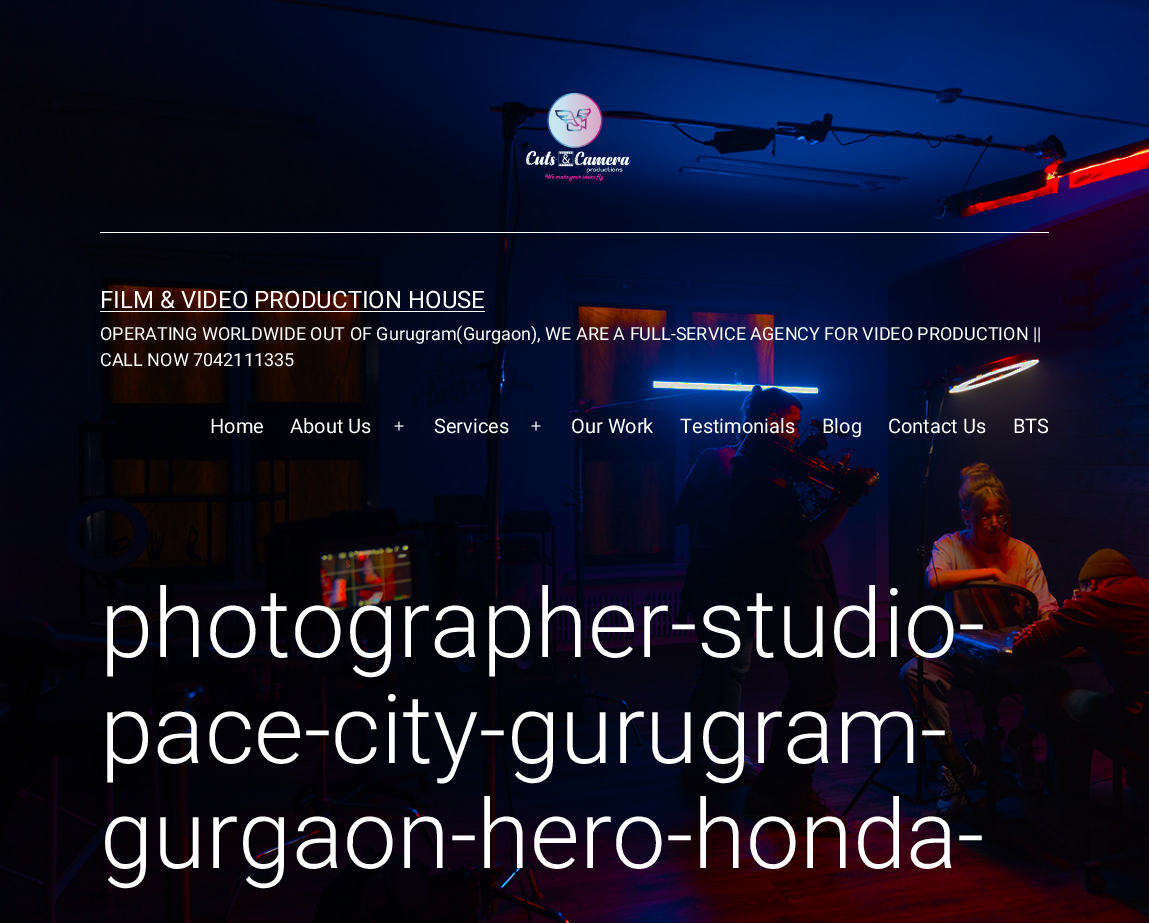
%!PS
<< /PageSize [1149 923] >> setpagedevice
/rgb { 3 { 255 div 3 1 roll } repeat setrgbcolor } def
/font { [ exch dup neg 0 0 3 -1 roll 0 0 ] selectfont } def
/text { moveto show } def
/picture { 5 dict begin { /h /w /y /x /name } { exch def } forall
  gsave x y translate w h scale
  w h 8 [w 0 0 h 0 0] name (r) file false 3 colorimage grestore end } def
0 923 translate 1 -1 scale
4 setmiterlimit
255 255 255 rgb
0 0 1149 923 rectfill
(img_01.rgb) 0 0 1149 923 picture
100 232 949 1 rectfill
(img_02.rgb) 525 92 106 89 picture
100 311 385 1 rectfill
(img_03.rgb) 394 421 10 10 picture
(img_04.rgb) 531 421 10 10 picture
/Roboto-Regular 24 font
(FILM & VIDEO PRODUCTION HOUSE) 100 308 text
/Roboto-Regular 18 font
(OPERATING WORLDWIDE OUT OF Gurugram\(Gurgaon\), WE ARE A FULL-SERVICE AGENCY FOR VIDEO PRODUCTION ||) 100 340 text
(CALL NOW 7042111335) 100 366 text
/Roboto-Regular 20 font
(Home) 210 433 text
(About Us) 290 433 text
(Services) 434 433 text
(Our Work) 571 433 text
(Testimonials) 680 433 text
(Blog) 822 433 text
(Contact Us) 888 433 text
(BTS) 1013 433 text
/Roboto-Light 96 font
(photographer-studio-) 100 657 text
(pace-city-gurugram-) 100 763 text
(gurgaon-hero-honda-) 100 868 text
showpage
